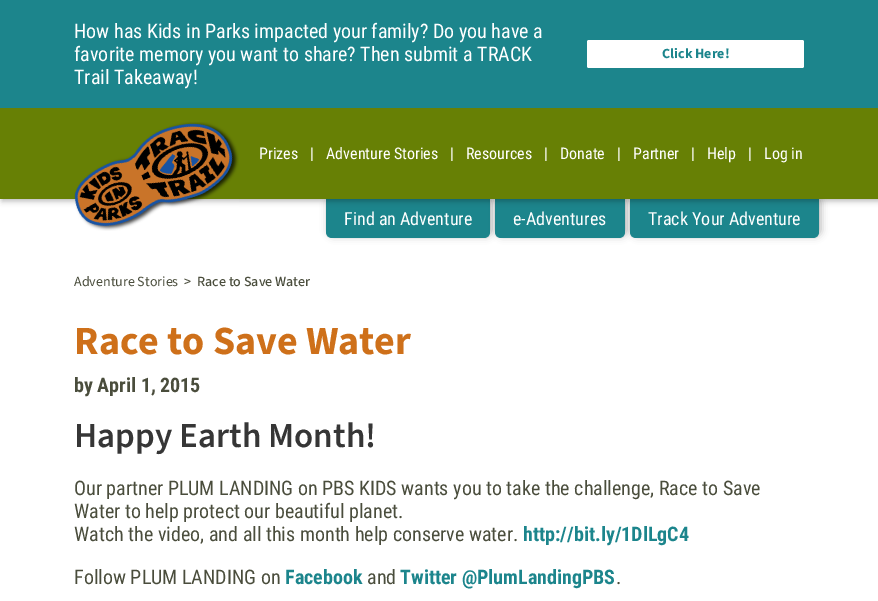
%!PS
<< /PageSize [878 601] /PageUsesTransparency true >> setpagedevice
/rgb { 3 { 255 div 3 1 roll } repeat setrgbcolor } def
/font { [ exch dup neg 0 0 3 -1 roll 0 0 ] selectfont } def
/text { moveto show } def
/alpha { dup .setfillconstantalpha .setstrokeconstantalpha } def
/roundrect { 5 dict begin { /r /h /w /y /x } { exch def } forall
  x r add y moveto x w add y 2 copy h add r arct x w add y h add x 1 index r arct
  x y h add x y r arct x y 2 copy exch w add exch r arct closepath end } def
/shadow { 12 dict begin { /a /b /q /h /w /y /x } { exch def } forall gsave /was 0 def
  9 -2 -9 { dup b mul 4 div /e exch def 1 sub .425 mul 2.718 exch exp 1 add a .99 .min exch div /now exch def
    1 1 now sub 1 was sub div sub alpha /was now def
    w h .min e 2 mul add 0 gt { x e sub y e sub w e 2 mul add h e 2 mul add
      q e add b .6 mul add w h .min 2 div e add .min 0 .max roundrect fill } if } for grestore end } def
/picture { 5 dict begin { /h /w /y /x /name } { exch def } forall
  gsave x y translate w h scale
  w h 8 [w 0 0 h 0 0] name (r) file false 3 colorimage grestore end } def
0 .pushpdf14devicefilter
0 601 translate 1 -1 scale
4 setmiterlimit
255 255 255 rgb
0 0 878 601 rectfill
28 133 140 rgb
0 0 878 108 rectfill
255 255 255 rgb
587 40 217 28 2 roundrect fill
0 0 0 rgb
328 197 164 39 6 4 0.28 shadow
28 133 140 rgb
326 199 moveto 164 0 rlineto 0 33 rlineto 0 3.5 -2.5 6 -6 6 rcurveto -152 0 rlineto -3.5 0 -6 -2.5 -6 -6 rcurveto closepath fill
0 0 0 rgb
497 197 130 39 6 4 0.28 shadow
28 133 140 rgb
495 199 moveto 130 0 rlineto 0 33 rlineto 0 3.5 -2.5 6 -6 6 rcurveto -118 0 rlineto -3.5 0 -6 -2.5 -6 -6 rcurveto closepath fill
0 0 0 rgb
632 197 189 39 6 4 0.28 shadow
28 133 140 rgb
630 199 moveto 189 0 rlineto 0 33 rlineto 0 3.5 -2.5 6 -6 6 rcurveto -177 0 rlineto -3.5 0 -6 -2.5 -6 -6 rcurveto closepath fill
gsave
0 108 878 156 rectclip
0 0 0 rgb
2 110 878 91 0 3 0.28 shadow
grestore
103 128 5 rgb
0 108 878 91 rectfill
(img_01.rgb) 74 122 165 109 picture
/RobotoCondensed-Regular 20 font
255 255 255 rgb
(How has Kids in Parks impacted your family? Do you have a) 74 38 text
(favorite memory you want to share? Then submit a TRACK) 74 61 text
(Trail Takeaway!) 74 84 text
/SourceSans3-Bold 14 font
28 133 140 rgb
(Click Here!) 662 58 text
/RobotoCondensed-Regular 16 font
255 255 255 rgb
(Prizes) 259 159 text
(|) 310 159 text
(Adventure Stories) 326 159 text
(|) 450 159 text
(Resources) 466 159 text
(|) 544 159 text
(Donate) 560 159 text
(|) 617 159 text
(Partner) 633 159 text
(|) 691 159 text
(Help) 707 159 text
(|) 748 159 text
(Log in) 764 159 text
/RobotoCondensed-Regular 18 font
(Find an Adventure) 344 225 text
(e-Adventures) 513 225 text
(Track Your Adventure) 648 225 text
/SourceSans3-Regular 14 font
74 77 60 rgb
(Adventure Stories) 74 286 text
/SourceSans3-Medium 14 font
(>) 184 286 text
(Race to Save Water) 197 286 text
/SourceSans3-Bold 40 font
206 112 26 rgb
(Race to Save Water) 74 354 text
/RobotoCondensed-Bold 20 font
74 77 60 rgb
(by April 1, 2015) 74 392 text
/SourceSans3-SemiBold 35 font
54 54 54 rgb
(Happy Earth Month!) 74 447 text
/RobotoCondensed-Regular 20 font
74 77 60 rgb
(Our partner PLUM LANDING on PBS KIDS wants you to take the challenge, Race to Save) 74 495 text
(Water to help protect our beautiful planet.) 74 518 text
(Watch the video, and all this month help conserve water.) 74 541 text
/RobotoCondensed-Bold 20 font
28 133 140 rgb
(http://bit.ly/1DlLgC4) 523 541 text
/RobotoCondensed-Regular 20 font
74 77 60 rgb
(Follow PLUM LANDING on) 74 584 text
/RobotoCondensed-Bold 20 font
28 133 140 rgb
(Facebook) 285 584 text
/RobotoCondensed-Regular 20 font
74 77 60 rgb
(and) 367 584 text
/RobotoCondensed-Bold 20 font
28 133 140 rgb
(Twitter @PlumLandingPBS) 400 584 text
/RobotoCondensed-Regular 20 font
74 77 60 rgb
(.) 616 584 text
.poppdf14devicefilter showpage
